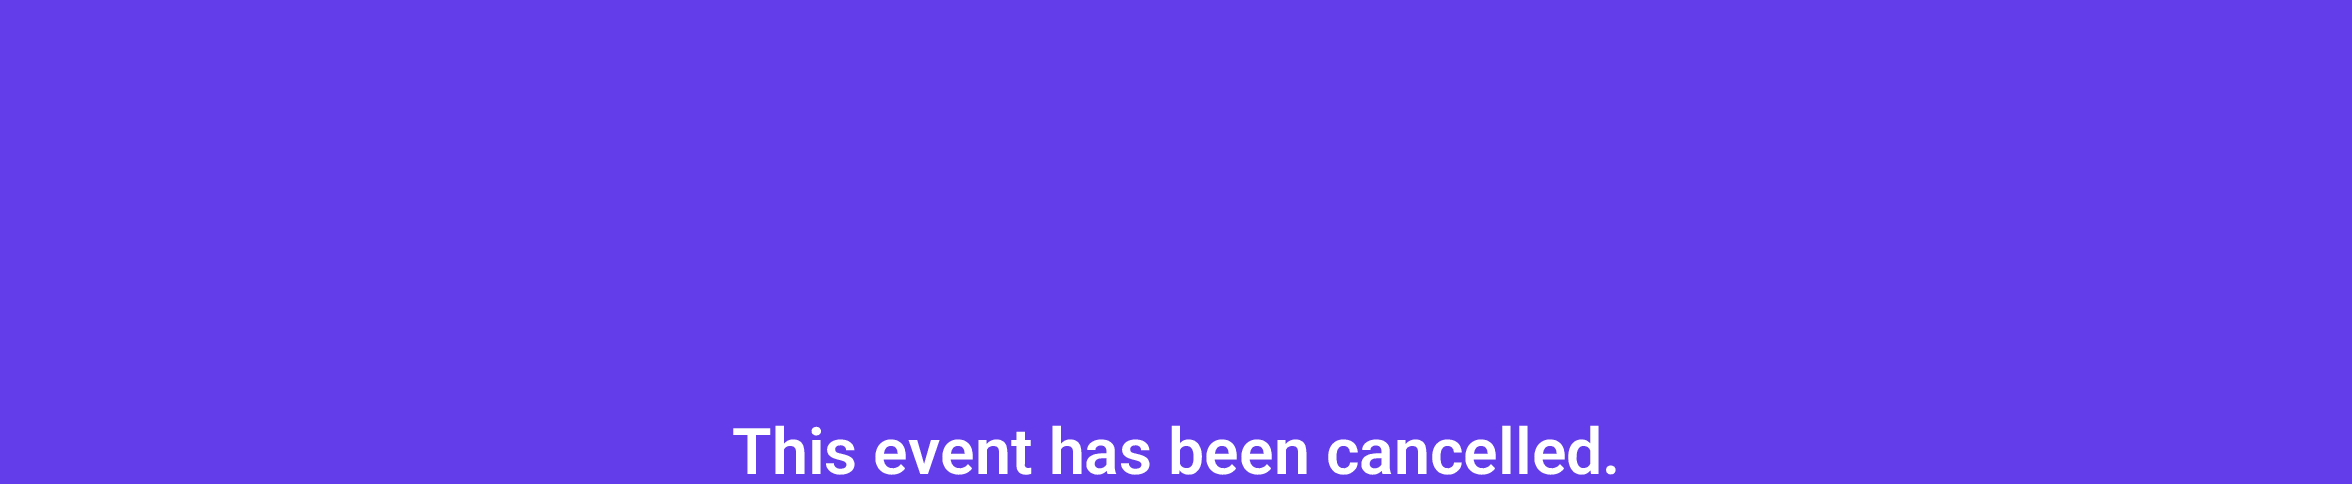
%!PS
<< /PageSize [2352 484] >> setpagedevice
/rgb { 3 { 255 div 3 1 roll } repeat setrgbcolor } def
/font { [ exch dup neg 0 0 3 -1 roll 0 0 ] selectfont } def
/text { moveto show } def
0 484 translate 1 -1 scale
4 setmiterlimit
99 61 234 rgb
0 0 2352 484 rectfill
/Roboto-SemiBold 64.4 font
255 255 255 rgb
(This event has been cancelled.) 732 474 text
showpage
